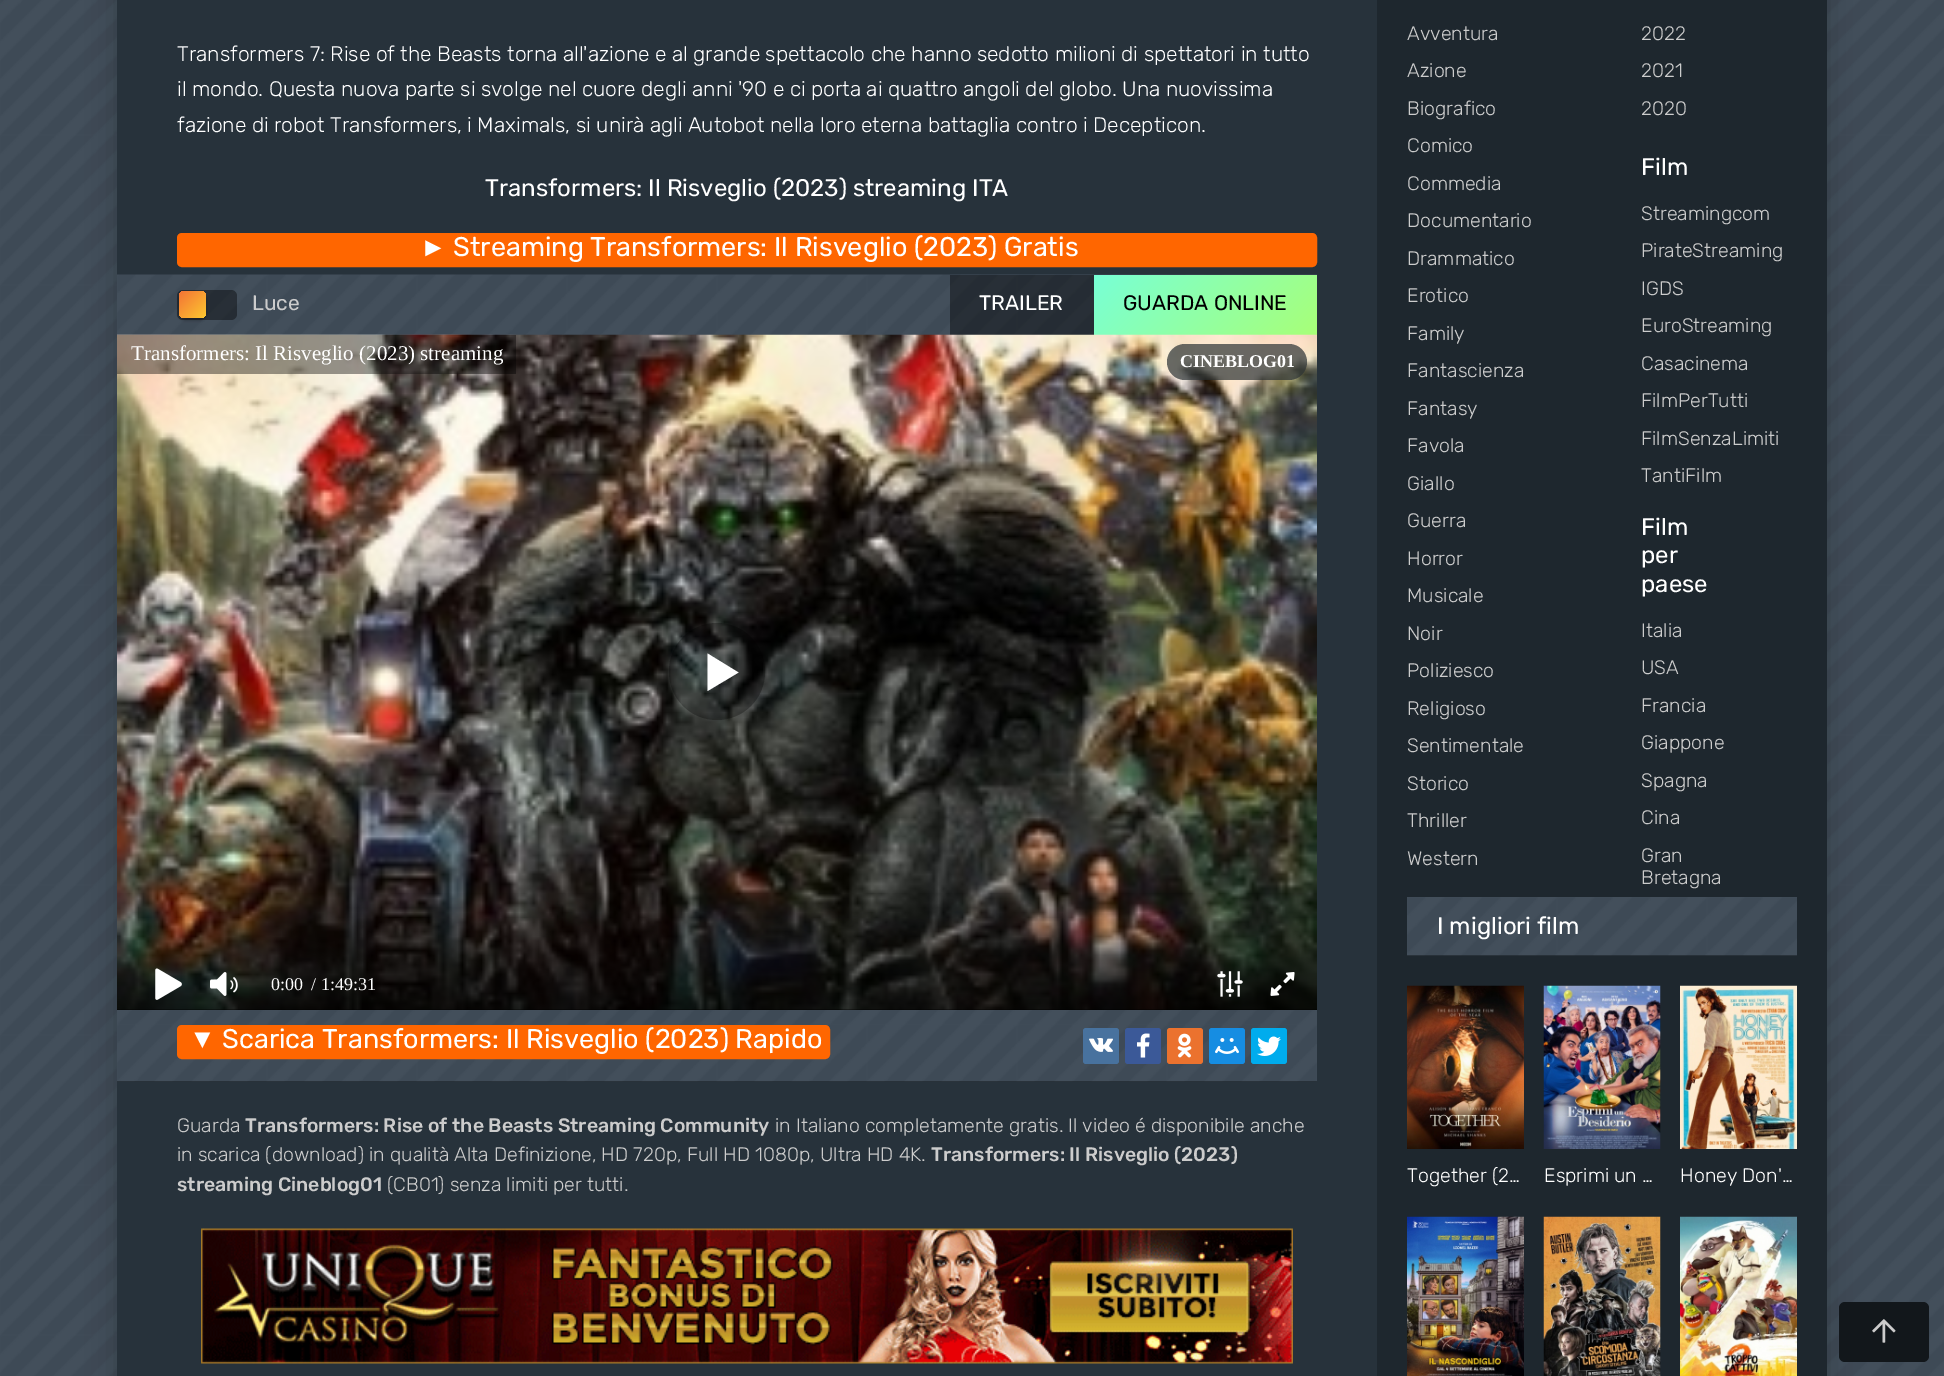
%!PS
<< /PageSize [1944 1376] /PageUsesTransparency true >> setpagedevice
/rgb { 3 { 255 div 3 1 roll } repeat setrgbcolor } def
/font { [ exch dup neg 0 0 3 -1 roll 0 0 ] selectfont } def
/text { moveto show } def
/alpha { dup .setfillconstantalpha .setstrokeconstantalpha } def
/roundrect { 5 dict begin { /r /h /w /y /x } { exch def } forall
  x r add y moveto x w add y 2 copy h add r arct x w add y h add x 1 index r arct
  x y h add x y r arct x y 2 copy exch w add exch r arct closepath end } def
/shadow { 12 dict begin { /a /b /q /h /w /y /x } { exch def } forall gsave /was 0 def
  9 -2 -9 { dup b mul 4 div /e exch def 1 sub .425 mul 2.718 exch exp 1 add a .99 .min exch div /now exch def
    1 1 now sub 1 was sub div sub alpha /was now def
    w h .min e 2 mul add 0 gt { x e sub y e sub w e 2 mul add h e 2 mul add
      q e add b .6 mul add w h .min 2 div e add .min 0 .max roundrect fill } if } for grestore end } def
/picture { 5 dict begin { /h /w /y /x /name } { exch def } forall
  gsave x y translate w h scale
  w h 8 [w 0 0 h 0 0] name (r) file false 3 colorimage grestore end } def
0 .pushpdf14devicefilter
0 1376 translate 1 -1 scale
4 setmiterlimit
255 255 255 rgb
0 0 1944 1376 rectfill
(img_01.rgb) 0 0 1944 1376 picture
0 0 0 rgb
117 -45 1710 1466 0 15 0.2 shadow
39 50 59 rgb
117 0 1260 1376 rectfill
255 102 0 rgb
178.5 234.5 1137 31 3.5 roundrect gsave fill grestore
3 setlinewidth
stroke
18 23 27 rgb
117 1081 1200 1 rectfill
(img_02.rgb) 117 274 1200 808 picture
0.4 alpha
0 0 0 rgb
177 290 60 30 6 roundrect fill
1 alpha
179 293 27 27 6 1.5 0.3 shadow
gsave 179 291 27 27 6 roundrect clip newpath
<< /ShadingType 2 /ColorSpace /DeviceRGB /Coords [179 291 206 318] /Extend [true true] /Function << /FunctionType 2 /Domain [0 1] /C0 [0.953 0.451 0.208] /C1 [0.992 0.784 0.188] /N 1 >> >> shfill grestore
0.4 alpha
950 275 144 60 rectfill
1 alpha
gsave 1094 275 moveto 223 0 rlineto 0 60 rlineto -223 0 rlineto closepath clip newpath
<< /ShadingType 2 /ColorSpace /DeviceRGB /Coords [1134 234 1276 375] /Extend [true true] /Function << /FunctionType 2 /Domain [0 1] /C0 [0.471 1 0.839] /C1 [0.659 1 0.471] /N 1 >> >> shfill grestore
117 1009 1200 1 rectfill
(img_03.rgb) 117 334 1200 676 picture
0.4 alpha
117 335 399 39 rectfill
0.7 alpha
42 49 52 rgb
1167 344 140 36 18 roundrect fill
0.3 alpha
0 0 0 rgb
669 623 96 97 48 roundrect fill
1 alpha
255 255 255 rgb
707.5 653.5 moveto 0 37.5 rlineto 31 -18.5 rlineto -31 -19 rlineto fill
(img_04.rgb) 117 893 1200 117 picture
(img_05.rgb) 155 968 27 32 picture
(img_06.rgb) 210 972 28 24 picture
(img_07.rgb) 1217 971 26 26 picture
(img_08.rgb) 1270 972 25 24 picture
255 102 0 rgb
178.5 1026.5 650 31 3.5 roundrect gsave fill grestore
stroke
72 114 158 rgb
1083 1028 36 36 3 roundrect fill
(img_09.rgb) 1089 1038 24 14 picture
59 89 152 rgb
1125 1028 36 36 3 roundrect fill
(img_10.rgb) 1137 1033 13 25 picture
235 114 46 rgb
1167 1028 36 36 3 roundrect fill
(img_11.rgb) 1177 1033 15 25 picture
22 141 226 rgb
1209 1028 36 36 3 roundrect fill
(img_12.rgb) 1215 1038 24 16 picture
0 172 237 rgb
1251 1028 36 36 3 roundrect fill
(img_13.rgb) 1257 1036 24 20 picture
(img_14.rgb) 201 1228 1092 136 picture
30 39 46 rgb
1377 0 450 1376 rectfill
18 23 27 rgb
1407 955 390 1 rectfill
(img_15.rgb) 1407 897 390 59 picture
(img_16.rgb) 1407 985 117 164 picture
(img_17.rgb) 1543 985 118 164 picture
(img_18.rgb) 1680 985 117 164 picture
(img_19.rgb) 1407 1216 117 160 picture
(img_20.rgb) 1543 1216 118 160 picture
(img_21.rgb) 1680 1216 117 160 picture
1839 1302 90 60 6 roundrect fill
(img_22.rgb) 1872 1319 24 24 picture
/Rubik-Light 21 font
255 255 255 rgb
(Transformers 7: Rise of the Beasts torna all'azione e al grande spettacolo che hanno sedotto milioni di spettatori in tutto) 177 61 text
(il mondo. Questa nuova parte si svolge nel cuore degli anni '90 e ci porta ai quattro angoli del globo. Una nuovissima) 177 96 text
(fazione di robot Transformers, i Maximals, si unirà agli Autobot nella loro eterna battaglia contro i Decepticon.) 177 132 text
/Rubik-Regular 24 font
(Transformers: Il Risveglio \(2023\) streaming ITA) 485 196 text
/LiberationSans-Regular 27 font
(►) 420 256 text
/Rubik-Regular 27 font
(Streaming Transformers: Il Risveglio \(2023\) Gratis) 453 256 text
/Rubik-Regular 21 font
204 204 204 rgb
(Luce) 252 310 text
255 255 255 rgb
(TRAILER) 979 310 text
0 0 0 rgb
(GUARDA ONLINE) 1123 310 text
/LiberationSerif-Regular 21 font
255 255 255 rgb
(Transformers: Il Risveglio \(2023\) streaming) 131 360 text
/LiberationSerif-Bold 18 font
(CINEBLOG01) 1180 367 text
/LiberationSerif-Regular 18 font
(0:00) 271 990 text
(/ 1:49:31) 311 990 text
/LiberationSans-Regular 27 font
(▼) 189 1048 text
/Rubik-Regular 27 font
(Scarica Transformers: Il Risveglio \(2023\) Rapido) 222 1048 text
/Rubik-Light 19.5 font
204 204 204 rgb
(Guarda) 177 1132 text
/Rubik-Medium 19.5 font
(Transformers: Rise of the Beasts Streaming Community) 245 1132 text
/Rubik-Light 19.5 font
(in Italiano completamente gratis. Il video é disponibile anche) 775 1132 text
(in scarica \(download\) in qualità Alta Definizione, HD 720p, Full HD 1080p, Ultra HD 4K.) 177 1161 text
/Rubik-Medium 19.5 font
(Transformers: Il Risveglio \(2023\)) 931 1161 text
(streaming Cineblog01) 177 1191 text
/Rubik-Light 19.5 font
(\(CB01\) senza limiti per tutti.) 387 1191 text
(Avventura) 1407 40 text
(Azione) 1407 77 text
(Biografico) 1407 115 text
(Comico) 1407 152 text
(Commedia) 1407 190 text
(Documentario) 1407 227 text
(Drammatico) 1407 265 text
(Erotico) 1407 302 text
(Family) 1407 340 text
(Fantascienza) 1407 377 text
(Fantasy) 1407 415 text
(Favola) 1407 452 text
(Giallo) 1407 490 text
(Guerra) 1407 527 text
(Horror) 1407 565 text
(Musicale) 1407 602 text
(Noir) 1407 640 text
(Poliziesco) 1407 677 text
(Religioso) 1407 715 text
(Sentimentale) 1407 752 text
(Storico) 1407 790 text
(Thriller) 1407 827 text
(Western) 1407 865 text
(2022) 1641 40 text
(2021) 1641 77 text
(2020) 1641 115 text
/Rubik-Regular 24 font
255 255 255 rgb
(Film) 1641 175 text
/Rubik-Light 19.5 font
204 204 204 rgb
(Streamingcom) 1641 220 text
(PirateStreaming) 1641 257 text
(IGDS) 1641 295 text
(EuroStreaming) 1641 332 text
(Casacinema) 1641 370 text
(FilmPerTutti) 1641 407 text
(FilmSenzaLimiti) 1641 445 text
(TantiFilm) 1641 482 text
/Rubik-Regular 24 font
255 255 255 rgb
(Film) 1641 535 text
(per) 1641 563 text
(paese) 1641 592 text
/Rubik-Light 19.5 font
204 204 204 rgb
(Italia) 1641 637 text
(USA) 1641 674 text
(Francia) 1641 712 text
(Giappone) 1641 749 text
(Spagna) 1641 787 text
(Cina) 1641 824 text
(Gran) 1641 862 text
(Bretagna) 1641 884 text
/Rubik-Regular 24 font
255 255 255 rgb
(I migliori film) 1437 934 text
/Rubik-Light 19.5 font
(Together \(2…) 1407 1182 text
(Esprimi un …) 1544 1182 text
(Honey Don'…) 1680 1182 text
.poppdf14devicefilter showpage
